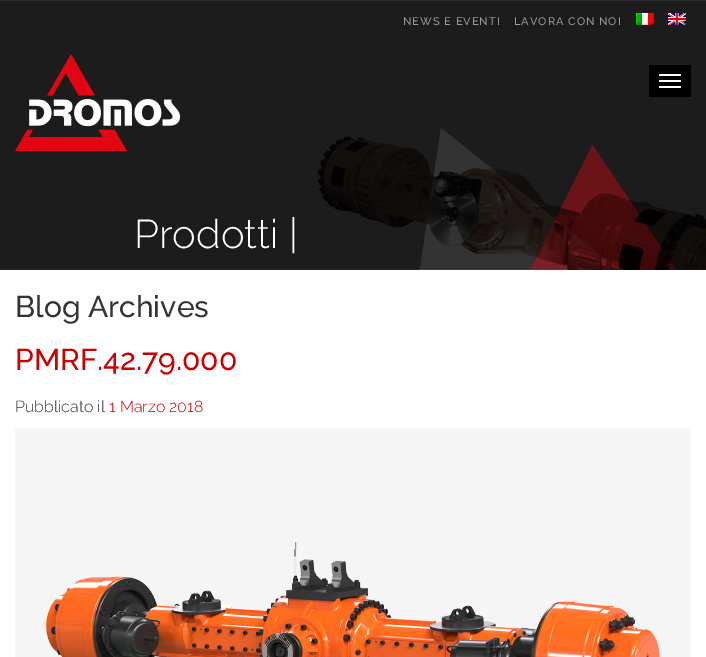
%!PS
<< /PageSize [706 657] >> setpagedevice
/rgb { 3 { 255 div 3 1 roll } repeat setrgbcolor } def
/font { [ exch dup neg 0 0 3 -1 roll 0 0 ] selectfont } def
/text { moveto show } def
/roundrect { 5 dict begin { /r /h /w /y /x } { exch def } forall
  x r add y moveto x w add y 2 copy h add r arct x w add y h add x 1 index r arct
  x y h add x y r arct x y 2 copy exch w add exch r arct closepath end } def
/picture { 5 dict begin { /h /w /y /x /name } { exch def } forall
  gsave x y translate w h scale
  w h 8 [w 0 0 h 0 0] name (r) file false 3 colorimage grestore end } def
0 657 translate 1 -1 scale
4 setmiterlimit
255 255 255 rgb
0 0 706 657 rectfill
(img_01.rgb) 0 0 706 270 picture
(img_02.rgb) 636 13 18 12 picture
(img_03.rgb) 668 13 18 12 picture
(img_04.rgb) 15 54 165 97 picture
0 0 0 rgb
649 65 42 32 rectfill
255 255 255 rgb
659 74 22 2 1 roundrect fill
659 80 22 2 1 roundrect fill
659 86 22 2 1 roundrect fill
(img_05.rgb) 15 428 676 229 picture
/Raleway-Medium 11 font
153 153 153 rgb
403 25 moveto 1 0 (NEWS E EVENTI) ashow
514 25 moveto 1 0 (LAVORA CON NOI) ashow
/Raleway-Light 40 font
255 255 255 rgb
(Prodotti |) 134 248 text
/Raleway-Medium 30 font
51 51 51 rgb
(Blog Archives) 15 317 text
204 0 0 rgb
(PMRF.42.79.000) 15 370 text
/Raleway-Light 16 font
51 51 51 rgb
(Pubblicato il) 15 412 text
204 0 0 rgb
(1 Marzo 2018) 109 412 text
showpage
